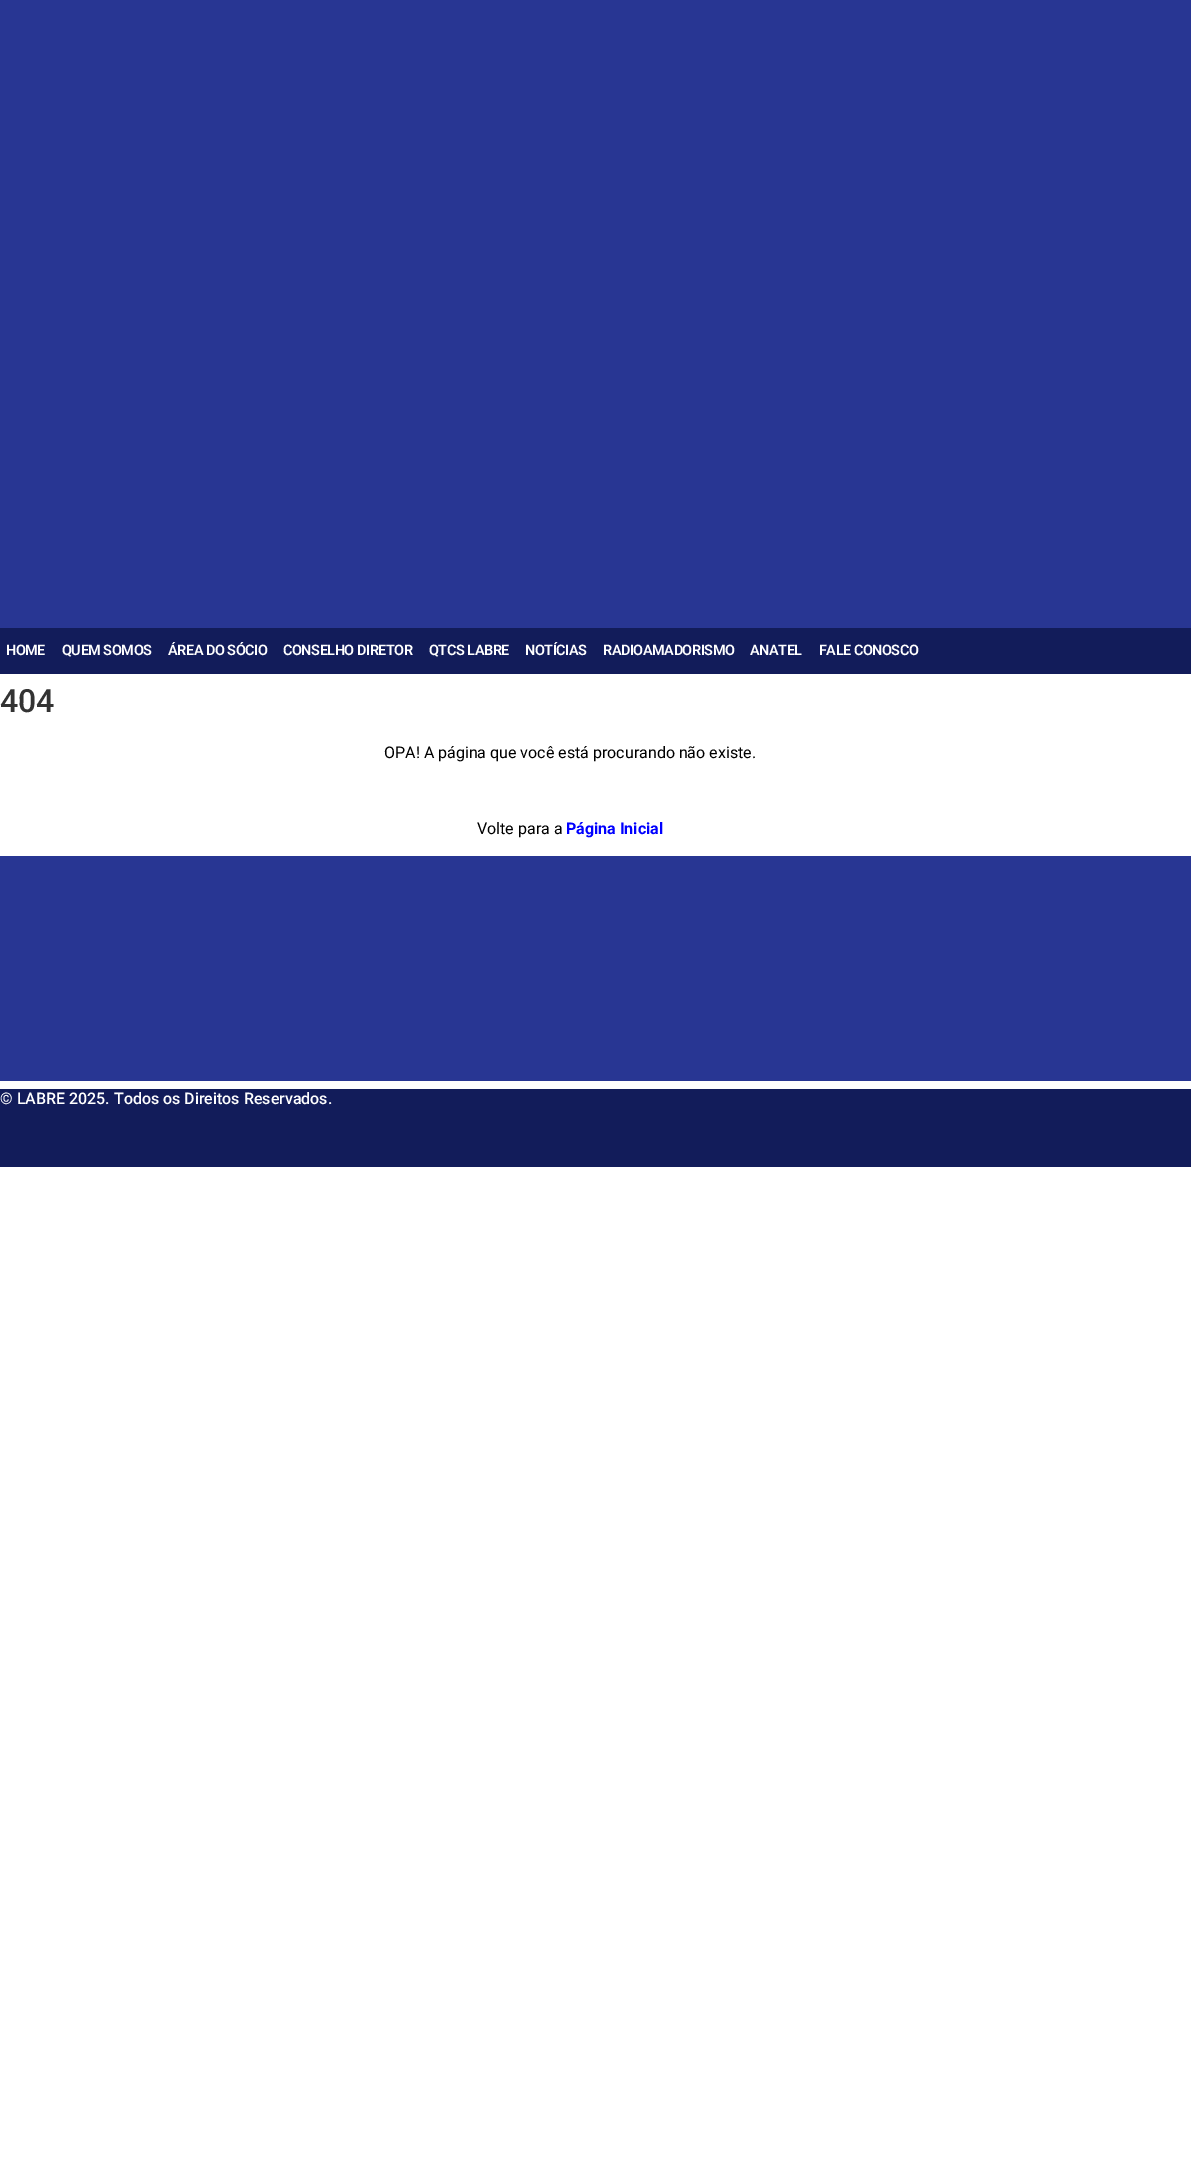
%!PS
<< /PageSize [1191 2178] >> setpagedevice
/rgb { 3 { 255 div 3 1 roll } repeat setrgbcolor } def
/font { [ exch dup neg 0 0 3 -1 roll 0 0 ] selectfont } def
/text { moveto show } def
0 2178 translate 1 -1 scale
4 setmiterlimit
255 255 255 rgb
0 0 1191 2178 rectfill
40 54 147 rgb
0 0 1191 628 rectfill
18 28 90 rgb
0 628 1191 46 rectfill
40 54 147 rgb
0 856 1191 225 rectfill
18 28 90 rgb
0 1089 1191 78 rectfill
/Roboto-SemiBold 14.5 font
255 255 255 rgb
6 655 moveto -0.5 0 (HOME) ashow
62 655 moveto -0.5 0 (QUEM SOMOS) ashow
168 655 moveto -0.5 0 (ÁREA DO SÓCIO) ashow
283 655 moveto -0.5 0 (CONSELHO DIRETOR) ashow
429 655 moveto -0.5 0 (QTCS LABRE) ashow
525 655 moveto -0.5 0 (NOTÍCIAS) ashow
603 655 moveto -0.5 0 (RADIOAMADORISMO) ashow
750 655 moveto -0.5 0 (ANATEL) ashow
819 655 moveto -0.5 0 (FALE CONOSCO) ashow
/Roboto-Medium 32 font
51 51 51 rgb
(404) 0 712 text
/Roboto-Regular 16 font
0 0 0 rgb
(OPA! A página que você está procurando não existe.) 384 758 text
(Volte para a) 477 834 text
/Roboto-Bold 16 font
0 0 255 rgb
(Página Inicial) 566 834 text
/Roboto-Medium 16 font
255 255 255 rgb
(© LABRE 2025. Todos os Direitos Reservados.) 0 1104 text
showpage
